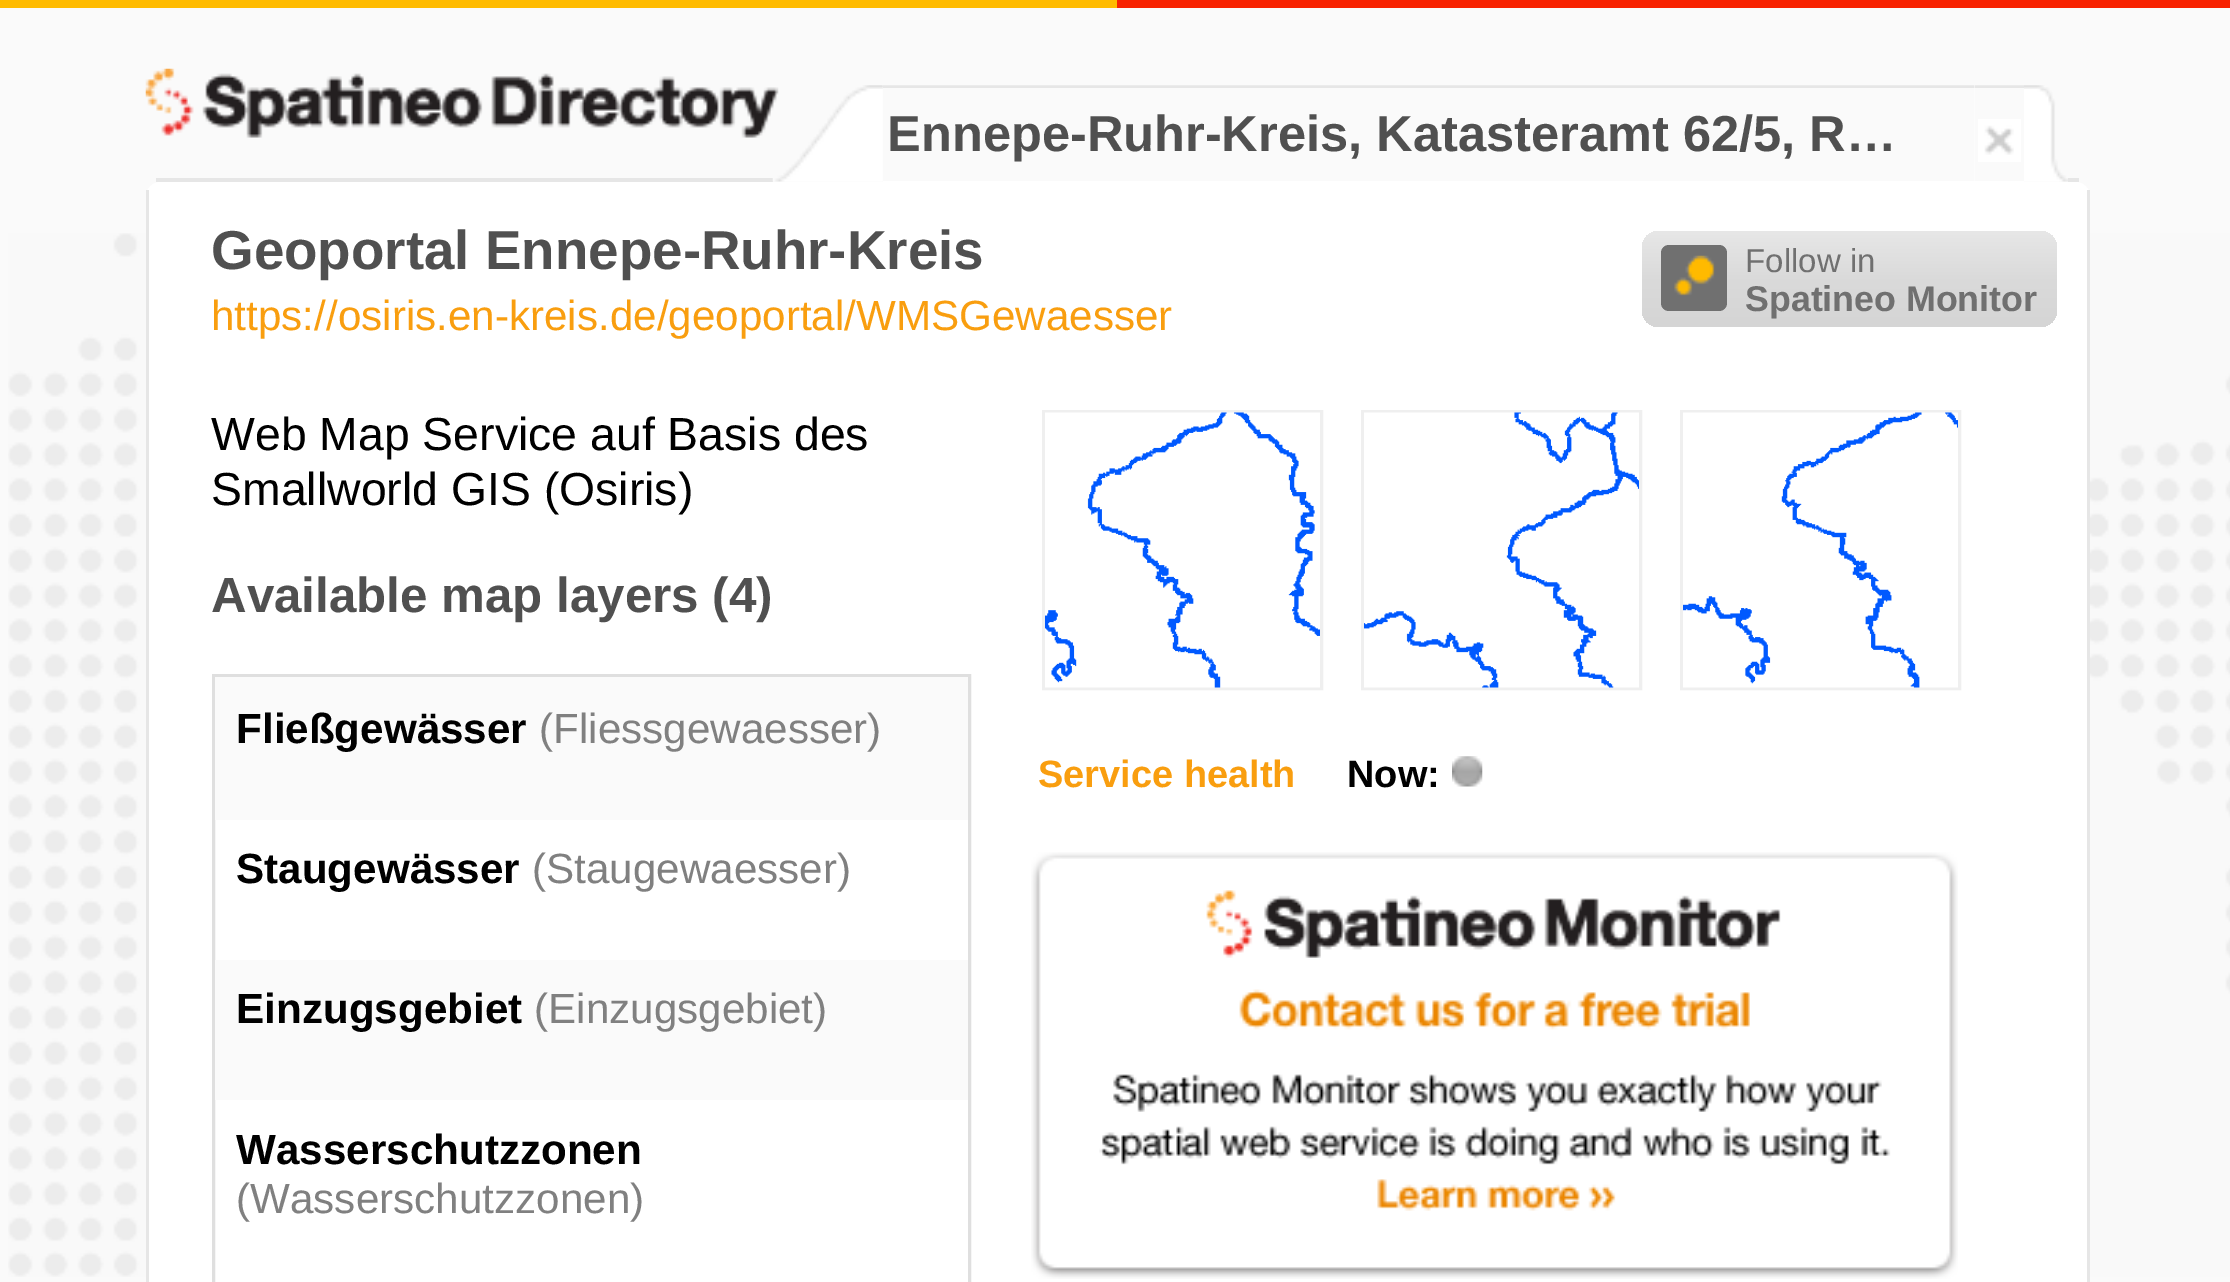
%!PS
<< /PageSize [2230 1282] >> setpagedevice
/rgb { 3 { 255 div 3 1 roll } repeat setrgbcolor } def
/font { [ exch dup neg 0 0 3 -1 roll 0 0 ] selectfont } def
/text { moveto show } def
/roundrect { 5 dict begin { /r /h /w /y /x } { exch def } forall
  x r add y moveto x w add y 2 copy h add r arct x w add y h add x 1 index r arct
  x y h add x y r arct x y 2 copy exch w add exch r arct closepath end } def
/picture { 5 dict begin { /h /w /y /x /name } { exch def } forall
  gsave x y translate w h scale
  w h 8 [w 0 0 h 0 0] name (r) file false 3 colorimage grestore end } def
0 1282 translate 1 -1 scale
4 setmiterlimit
250 250 250 rgb
0 0 2230 1282 rectfill
255 187 0 rgb
0 0 1117 8 rectfill
248 34 0 rgb
1117 0 1113 8 rectfill
(img_01.rgb) 8 233 2222 1044 picture
230 230 230 rgb
156 178 617 4 rectfill
(img_03.rgb) 772 85 111 97 picture
(img_02.rgb) 145 68 634 70 picture
255 255 255 rgb
883 85 1141 97 rectfill
(img_04.rgb) 883 85 1092 96 picture
(img_05.rgb) 1975 85 49 96 picture
(img_06.rgb) 1978 119 43 43 picture
(img_07.rgb) 2024 85 44 97 picture
230 230 230 rgb
2068 178 11 4 rectfill
255 255 255 rgb
160 182 moveto 1916 0 rlineto 7.5 0 14 6.5 14 14 rcurveto 0 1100 rlineto -1944 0 rlineto 0 -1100 rlineto 0 -7.5 6.5 -14 14 -14 rcurveto closepath fill
230 230 230 rgb
2087 190 3 1092 rectfill
146 190 3 1092 rectfill
223 223 223 rgb
3 setlinewidth
213.5 675.5 756 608 rectstroke
250 250 250 rgb
215 677 753 143 rectfill
215 960 753 140 rectfill
239 239 239 rgb
1043.5 411.5 278 277 rectstroke
1362.5 411.5 278 277 rectstroke
1681.5 411.5 278 277 rectstroke
(img_08.rgb) 1045 412 275 276 picture
(img_09.rgb) 1364 412 275 276 picture
(img_10.rgb) 1683 412 275 276 picture
(img_11.rgb) 1452 756 31 31 picture
(img_12.rgb) 1031 852 927 427 picture
gsave 1642 231 415 96 17 roundrect clip newpath
<< /ShadingType 2 /ColorSpace /DeviceRGB /Coords [1849 231 1849 327] /Extend [true true] /Function << /FunctionType 3 /Domain [0 1] /Functions [<< /FunctionType 2 /Domain [0 1] /C0 [0.906 0.906 0.906] /C1 [0.855 0.855 0.855] /N 1 >> << /FunctionType 2 /Domain [0 1] /C0 [0.855 0.855 0.855] /C1 [0.835 0.835 0.835] /N 1 >>] /Bounds [0.5] /Encode [0 1 0 1] >> >> shfill grestore
112 112 112 rgb
1661 245 66 66 8 roundrect fill
(img_13.rgb) 1674 255 41 41 picture
/LiberationSans-Bold 50.6 font
80 80 80 rgb
(Ennepe-Ruhr-Kreis, Katasteramt 62/5, R…) 887 151 text
/LiberationSans-Bold 54.75 font
(Geoportal Ennepe-Ruhr-Kreis) 211 269 text
/LiberationSans-Regular 42.2 font
249 158 15 rgb
(https://osiris.en-kreis.de/geoportal/WMSGewaesser) 211 330 text
/LiberationSans-Regular 46.4 font
0 0 0 rgb
(Web Map Service auf Basis des) 211 450 text
(Smallworld GIS \(Osiris\)) 211 505 text
/LiberationSans-Bold 49.3 font
80 80 80 rgb
(Available map layers \(4\)) 211 612 text
/LiberationSans-Bold 42.2 font
0 0 0 rgb
(Fließgewässer) 236 743 text
/LiberationSans-Regular 42.2 font
128 128 128 rgb
(\(Fliessgewaesser\)) 539 743 text
/LiberationSans-Bold 42.2 font
0 0 0 rgb
(Staugewässer) 236 883 text
/LiberationSans-Regular 42.2 font
128 128 128 rgb
(\(Staugewaesser\)) 532 883 text
/LiberationSans-Bold 42.2 font
0 0 0 rgb
(Einzugsgebiet) 236 1023 text
/LiberationSans-Regular 42.2 font
128 128 128 rgb
(\(Einzugsgebiet\)) 534 1023 text
/LiberationSans-Bold 42.2 font
0 0 0 rgb
(Wasserschutzzonen) 236 1164 text
/LiberationSans-Regular 42.2 font
128 128 128 rgb
(\(Wasserschutzzonen\)) 236 1213 text
/LiberationSans-Bold 38 font
249 158 15 rgb
(Service health) 1038 787 text
0 0 0 rgb
(Now:) 1347 787 text
/LiberationSans-Regular 33 font
112 112 112 rgb
(Follow in) 1745 272 text
/LiberationSans-Bold 35.75 font
(Spatineo Monitor) 1745 311 text
showpage
